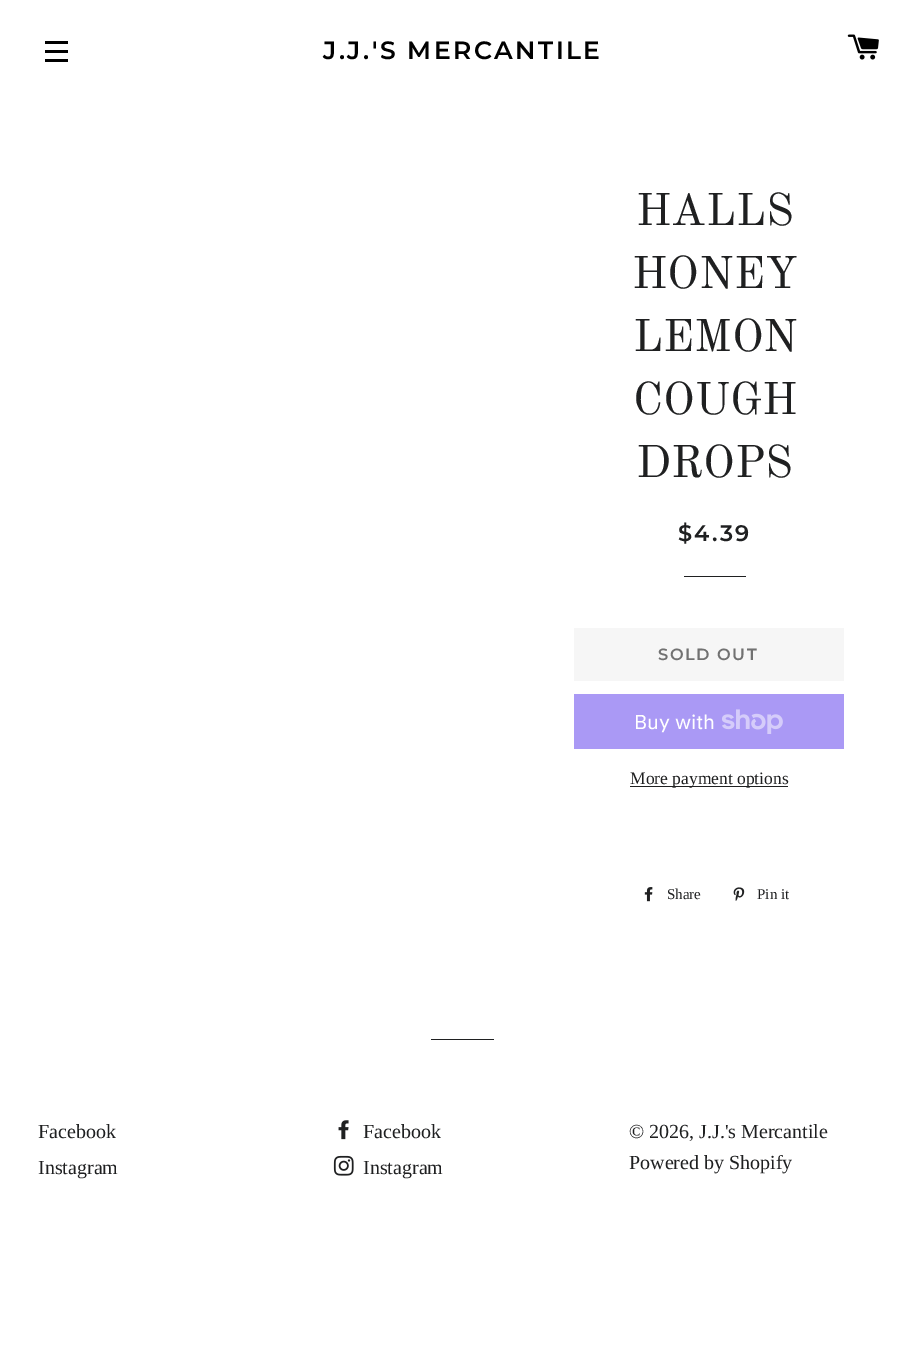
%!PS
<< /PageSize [924 1369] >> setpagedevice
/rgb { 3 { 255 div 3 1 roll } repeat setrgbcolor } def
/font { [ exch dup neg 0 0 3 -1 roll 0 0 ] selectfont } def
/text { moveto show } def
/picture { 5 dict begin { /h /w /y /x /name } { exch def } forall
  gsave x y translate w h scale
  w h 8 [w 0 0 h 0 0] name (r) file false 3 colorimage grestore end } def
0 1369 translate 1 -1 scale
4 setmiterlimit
255 255 255 rgb
0 0 924 1369 rectfill
0 0 0 rgb
45 41 23 3 rectfill
45 50 23 3 rectfill
45 59 23 3 rectfill
(img_01.rgb) 847 34 32 26 picture
31 32 33 rgb
684 576 62 1 rectfill
246 246 246 rgb
574 628 270 53 rectfill
170 153 245 rgb
574 694 270 55 rectfill
(img_02.rgb) 722 709 61 25 picture
31 32 33 rgb
630 786 158 1 rectfill
(img_03.rgb) 644 887 9 15 picture
(img_04.rgb) 733 887 12 14 picture
431 1039 63 1 rectfill
(img_05.rgb) 338 1120 11 20 picture
(img_06.rgb) 333 1155 21 21 picture
/Montserrat-SemiBold 25 font
0 0 0 rgb
323 59 moveto 2.5 0 (J.J.'S MERCANTILE) ashow
/OldStandardTT-Regular 45 font
31 32 33 rgb
(HALLS) 636 225 text
(HONEY) 632 288 text
(LEMON) 633 351 text
(COUGH) 633 414 text
(DROPS) 636 477 text
/Montserrat-SemiBold 22.5 font
678 541 moveto 2.25 0 ($4.39) ashow
/Montserrat-SemiBold 16.25 font
113 113 113 rgb
658 660 moveto 1.5 0 (SOLD OUT) ashow
/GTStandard-Regular 20 font
255 255 255 rgb
(Buy with) 634 729 text
/LiberationSerif-Regular 17.5 font
31 32 33 rgb
(More payment options) 630 784 text
/LiberationSerif-Regular 15 font
(Share) 667 899 text
(Pin it) 757 899 text
/LiberationSerif-Regular 20 font
(Facebook) 38 1138 text
(Instagram) 38 1174 text
(Facebook) 363 1138 text
(Instagram) 363 1174 text
(© 2026, J.J.'s Mercantile) 629 1138 text
(Powered by Shopify) 629 1169 text
showpage
